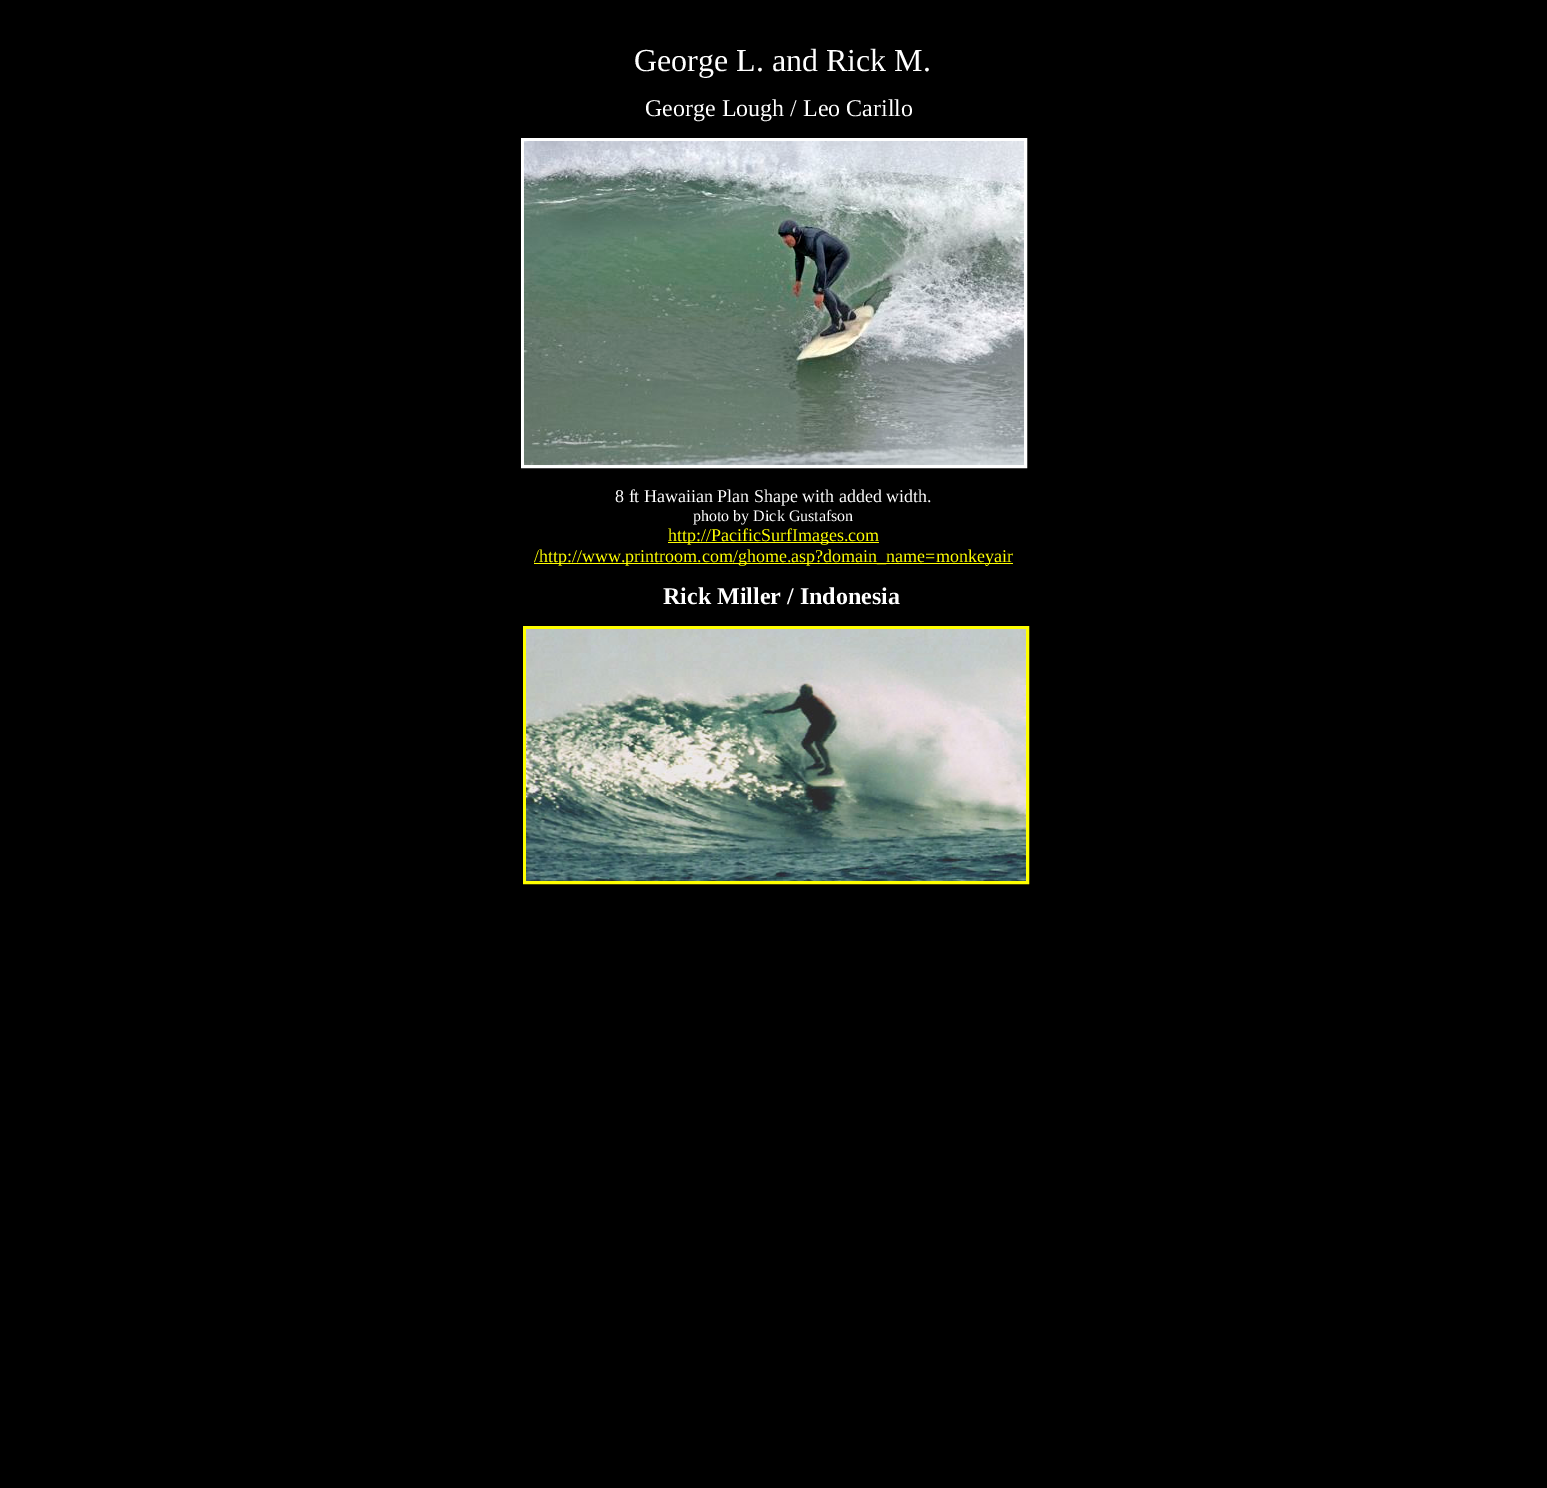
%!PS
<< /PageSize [1547 1488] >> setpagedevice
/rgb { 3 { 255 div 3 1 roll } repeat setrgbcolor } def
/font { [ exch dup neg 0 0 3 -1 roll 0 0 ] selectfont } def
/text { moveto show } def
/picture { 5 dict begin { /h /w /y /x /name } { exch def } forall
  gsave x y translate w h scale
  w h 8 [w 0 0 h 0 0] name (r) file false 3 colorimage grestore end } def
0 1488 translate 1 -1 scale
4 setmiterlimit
0 0 0 rgb
0 0 1547 1488 rectfill
255 255 255 rgb
3 setlinewidth
522.5 139.5 503 327 rectstroke
(img_01.rgb) 524 141 500 324 picture
255 255 0 rgb
668 542 211 1 rectfill
534 563 479 1 rectfill
524.5 627.5 503 255 rectstroke
(img_02.rgb) 526 629 500 252 picture
/LiberationSerif-Regular 32 font
255 255 255 rgb
(George L. and Rick M.) 634 71 text
/LiberationSerif-Regular 24 font
(George Lough / Leo Carillo) 645 116 text
/LiberationSerif-Regular 18 font
(8 ft Hawaiian Plan Shape with added width.) 615 502 text
/LiberationSerif-Regular 16 font
(photo by Dick Gustafson) 693 521 text
/LiberationSerif-Regular 18 font
255 255 0 rgb
(http://PacificSurfImages.com) 668 541 text
(/http://www.printroom.com/ghome.asp?domain_name=monkeyair) 534 562 text
/LiberationSerif-Bold 24 font
255 255 255 rgb
(Rick Miller / Indonesia) 663 604 text
showpage
